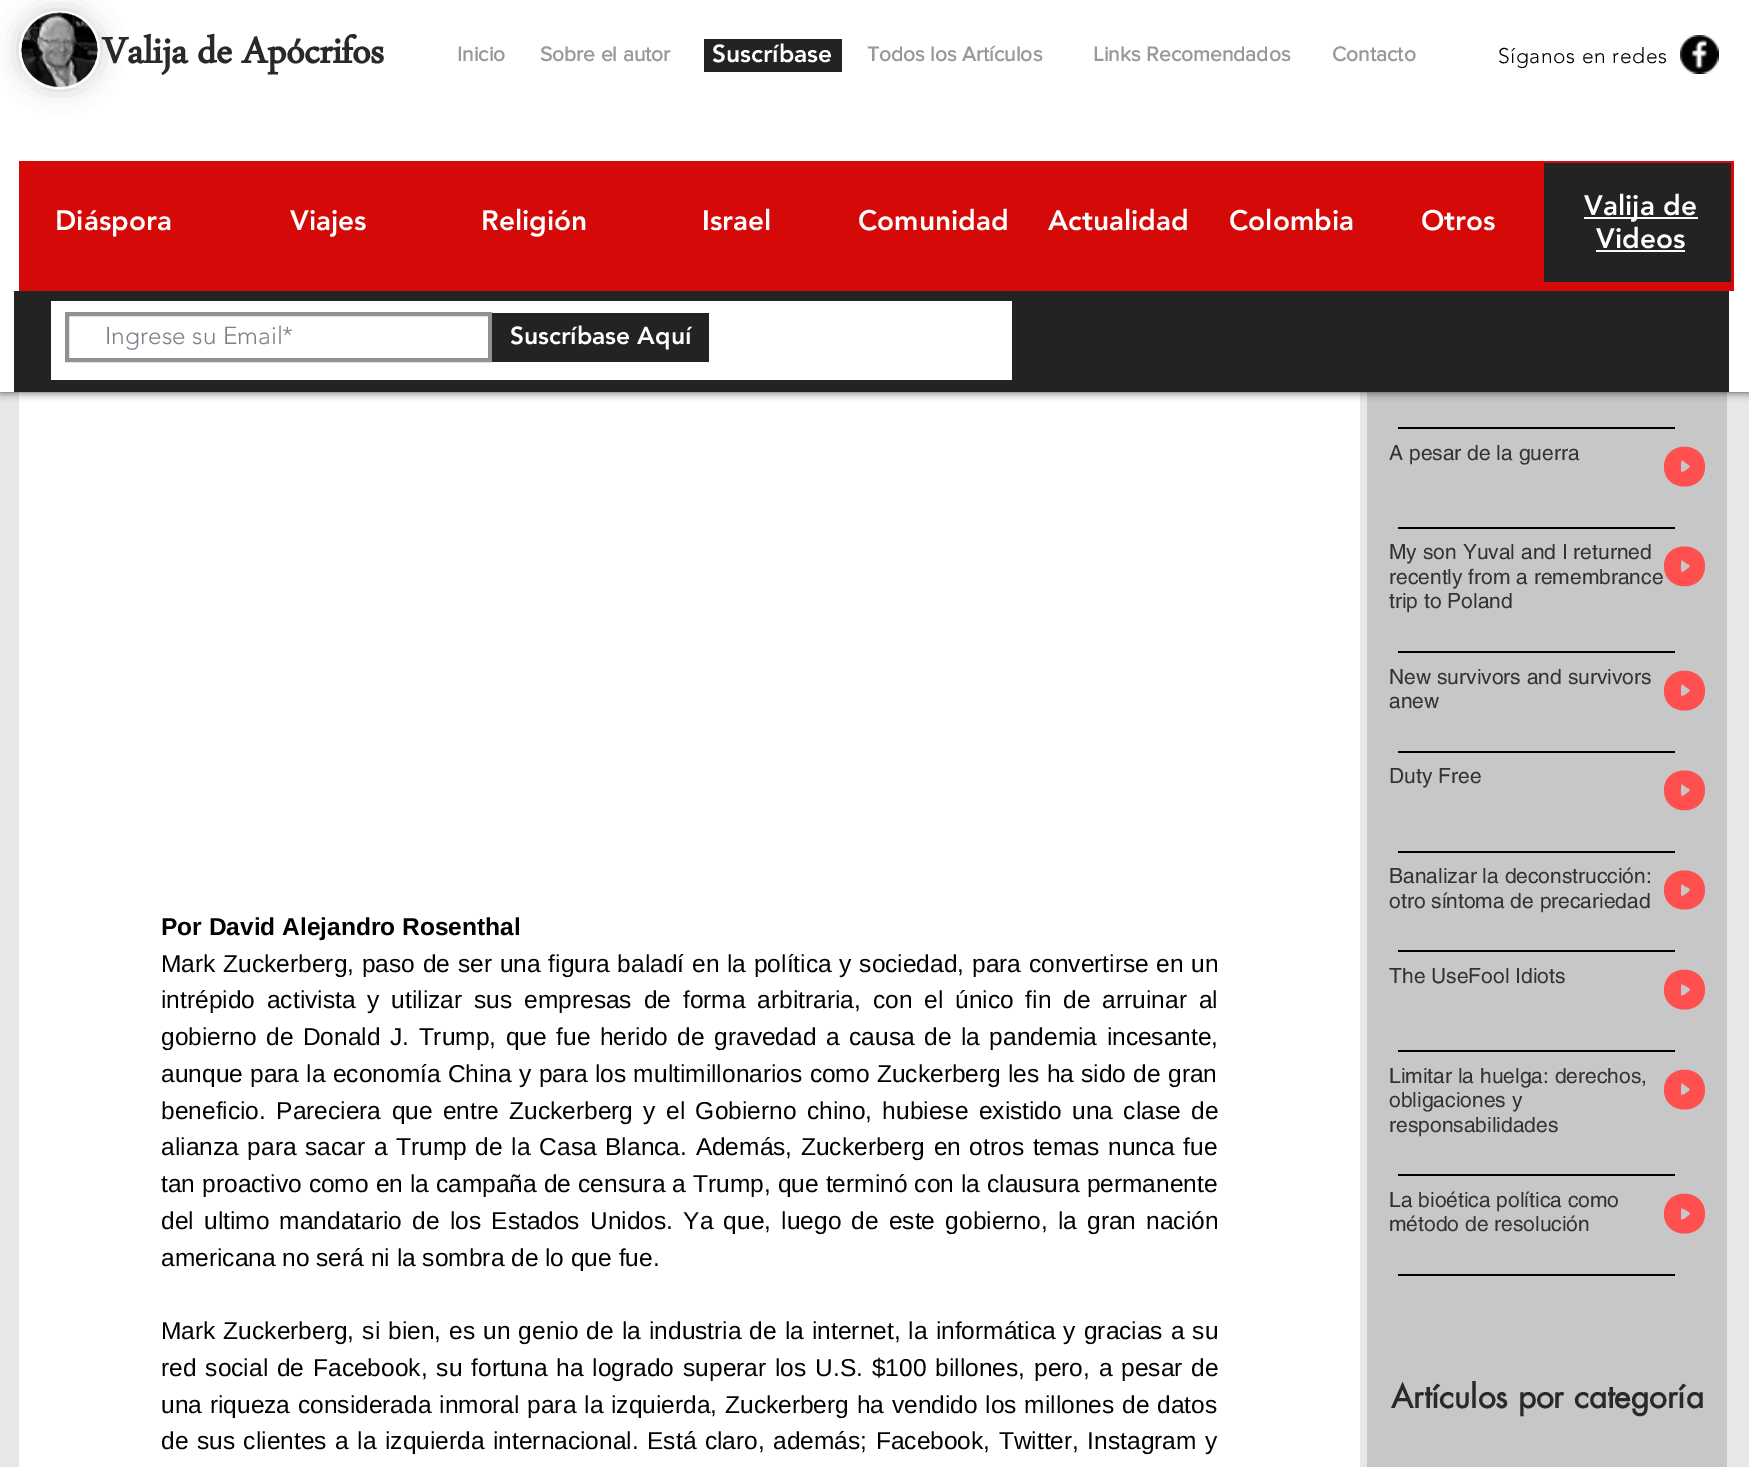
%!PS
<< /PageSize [1749 1467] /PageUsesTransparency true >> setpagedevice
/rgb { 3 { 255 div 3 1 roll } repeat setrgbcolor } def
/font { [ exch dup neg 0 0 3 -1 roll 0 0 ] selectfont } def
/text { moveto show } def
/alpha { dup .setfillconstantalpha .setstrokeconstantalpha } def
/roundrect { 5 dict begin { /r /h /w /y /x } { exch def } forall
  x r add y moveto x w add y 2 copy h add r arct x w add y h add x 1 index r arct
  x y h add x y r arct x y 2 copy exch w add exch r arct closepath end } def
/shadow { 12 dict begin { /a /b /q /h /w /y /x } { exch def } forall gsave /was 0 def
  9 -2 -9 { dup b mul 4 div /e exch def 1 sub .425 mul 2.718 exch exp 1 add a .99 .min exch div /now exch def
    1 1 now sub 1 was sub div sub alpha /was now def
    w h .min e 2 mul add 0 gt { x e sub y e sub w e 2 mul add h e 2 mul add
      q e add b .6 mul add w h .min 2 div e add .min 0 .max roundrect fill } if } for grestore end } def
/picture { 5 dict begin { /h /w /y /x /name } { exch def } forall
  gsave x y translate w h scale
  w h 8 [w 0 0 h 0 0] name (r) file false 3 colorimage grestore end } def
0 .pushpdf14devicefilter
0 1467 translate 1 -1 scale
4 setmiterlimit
232 230 230 rgb
0 0 1749 1467 rectfill
255 255 255 rgb
19 392 1341 1075 rectfill
199 199 199 rgb
1367 392 360 1075 rectfill
0 0 0 rgb
0 0 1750 392 0 4.5 0.7 shadow
255 255 255 rgb
0 0 1749 392 rectfill
0 0 0 rgb
19 11 81 78 39 12 0.2 shadow
255 255 255 rgb
20 12 79 76 38 roundrect gsave fill grestore
2 setlinewidth
stroke
(img_01.rgb) 21 12 77 76 picture
36 35 35 rgb
704 39 138 33 rectfill
(img_02.rgb) 1680 35 39 39 picture
214 9 9 rgb
19 161 1715 130 rectfill
36 35 35 rgb
1544 163 187 119 rectfill
250 250 250 rgb
1584 217 114 2 rectfill
1596 250 89 2 rectfill
36 35 35 rgb
14 291 1715 101 rectfill
255 255 255 rgb
51 301 961 79 rectfill
145 145 145 rgb
4 setlinewidth
67 314 423 46 rectstroke
36 35 35 rgb
492 313 217 49 rectfill
0 0 0 rgb
1398 427 277 2 rectfill
255 79 79 rgb
1705 467 moveto 0 -27 -41 -27 -41 0 rcurveto 0 26 41 26 41 0 rcurveto closepath 1681 471 moveto 0 -8 rlineto 0 -5 2 -2 5 0 rcurveto 1 1 4 2 4 4 rcurveto 0 0 -9 8 -9 4 rcurveto closepath fill
0 0 0 rgb
1398 527 277 2 rectfill
255 79 79 rgb
1705 566 moveto 0 -26 -41 -26 -41 0 rcurveto 0 27 41 27 41 0 rcurveto closepath 1681 571 moveto 0 -8 rlineto 0 -5 2 -2 5 0 rcurveto 1 1 4 2 4 3 rcurveto 0 1 -9 9 -9 5 rcurveto closepath fill
0 0 0 rgb
1398 651 277 2 rectfill
255 79 79 rgb
1705 691 moveto 0 -27 -41 -27 -41 0 rcurveto 0 26 41 26 41 0 rcurveto closepath 1681 695 moveto 0 -8 rlineto 0 -5 2 -2 5 0 rcurveto 1 1 4 2 4 4 rcurveto 0 0 -9 8 -9 4 rcurveto closepath fill
0 0 0 rgb
1398 751 277 2 rectfill
255 79 79 rgb
1705 790 moveto 0 -26 -41 -26 -41 0 rcurveto 0 27 41 27 41 0 rcurveto closepath 1681 795 moveto 0 -8 rlineto 0 -5 2 -2 5 0 rcurveto 1 1 4 2 4 3 rcurveto 0 1 -9 9 -9 5 rcurveto closepath fill
0 0 0 rgb
1398 851 277 2 rectfill
255 79 79 rgb
1705 890 moveto 0 -26 -41 -26 -41 0 rcurveto 0 26 41 26 41 0 rcurveto closepath 1681 895 moveto 0 -8 rlineto 0 -5 2 -2 5 0 rcurveto 1 0 4 1 4 3 rcurveto 0 1 -9 9 -9 5 rcurveto closepath fill
0 0 0 rgb
1398 950 277 2 rectfill
255 79 79 rgb
1705 990 moveto 0 -27 -41 -27 -41 0 rcurveto 0 26 41 26 41 0 rcurveto closepath 1681 995 moveto 0 -8 rlineto 0 -5 2 -2 5 -1 rcurveto 1 1 4 2 4 4 rcurveto 0 1 -9 8 -9 5 rcurveto closepath fill
0 0 0 rgb
1398 1050 277 2 rectfill
255 79 79 rgb
1705 1090 moveto 0 -27 -41 -27 -41 0 rcurveto 0 26 41 26 41 0 rcurveto closepath 1681 1094 moveto 0 -8 rlineto 0 -5 2 -2 5 0 rcurveto 1 1 4 2 4 4 rcurveto 0 0 -9 8 -9 4 rcurveto closepath fill
0 0 0 rgb
1398 1174 277 2 rectfill
255 79 79 rgb
1705 1214 moveto 0 -27 -41 -27 -41 0 rcurveto 0 26 41 26 41 0 rcurveto closepath 1681 1219 moveto 0 -8 rlineto 0 -5 2 -2 5 -1 rcurveto 1 1 4 2 4 4 rcurveto 0 1 -9 8 -9 5 rcurveto closepath fill
0 0 0 rgb
1398 1274 277 2 rectfill
/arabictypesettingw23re-Bold 52.5 font
41 41 41 rgb
(Valija de Apócrifos) 102 63 text
/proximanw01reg-Bold 21 font
153 153 151 rgb
(Inicio) 457 61 text
(Sobre el autor) 540 61 text
/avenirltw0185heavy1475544-Black 24.5 font
255 255 255 rgb
(Suscríbase) 712 62 text
/proximanw01reg-Bold 21 font
153 153 151 rgb
(Todos los Artículos) 867 61 text
(Links Recomendados) 1093 61 text
(Contacto) 1332 61 text
/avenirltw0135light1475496-Light 21 font
0 0 0 rgb
1498 63 moveto 0.6 0 (Síganos en redes) ashow
/avenirltw0185heavy1475544-Black 28 font
255 255 255 rgb
(Diáspora) 55 230 text
(Viajes) 290 230 text
(Religión) 481 230 text
(Israel) 702 230 text
(Comunidad) 858 230 text
(Actualidad) 1048 230 text
(Colombia) 1229 230 text
(Otros) 1421 230 text
(Valija de) 1584 215 text
(Videos) 1596 248 text
/avenirltw0135light1475496-Light 24.5 font
127 128 138 rgb
(Ingrese su Email*) 105 344 text
/avenirltw0185heavy1475544-Black 24.5 font
255 255 255 rgb
(Suscríbase Aquí) 510 344 text
/LiberationSans-Bold 24.5 font
0 0 0 rgb
(Por David Alejandro Rosenthal) 161 935 text
/LiberationSans-Regular 24.5 font
161 972 moveto 1 0 32 (Mark Zuckerberg, paso de ser una figura baladí en la política y sociedad, para convertirse en un) widthshow
161 1008 moveto 5.1 0 32 (intrépido activista y utilizar sus empresas de forma arbitraria, con el único fin de arruinar al) widthshow
161 1045 moveto 2.75 0 32 (gobierno de Donald J. Trump, que fue herido de gravedad a causa de la pandemia incesante,) widthshow
161 1082 moveto 0.5 0 32 (aunque para la economía China y para los multimillonarios como Zuckerberg les ha sido de gran) widthshow
161 1119 moveto 3.6 0 32 (beneficio. Pareciera que entre Zuckerberg y el Gobierno chino, hubiese existido una clase de) widthshow
161 1155 moveto 1.9 0 32 (alianza para sacar a Trump de la Casa Blanca. Además, Zuckerberg en otros temas nunca fue) widthshow
161 1192 moveto 0.25 0 32 (tan proactivo como en la campaña de censura a Trump, que terminó con la clausura permanente) widthshow
161 1229 moveto 3.4 0 32 (del ultimo mandatario de los Estados Unidos. Ya que, luego de este gobierno, la gran nación) widthshow
(americana no será ni la sombra de lo que fue.) 161 1266 text
161 1339 moveto 1.25 0 32 (Mark Zuckerberg, si bien, es un genio de la industria de la internet, la informática y gracias a su) widthshow
161 1376 moveto 2.1 0 32 (red social de Facebook, su fortuna ha logrado superar los U.S. $100 billones, pero, a pesar de) widthshow
161 1413 moveto 1 0 32 (una riqueza considerada inmoral para la izquierda, Zuckerberg ha vendido los millones de datos) widthshow
161 1449 moveto 1.75 0 32 (de sus clientes a la izquierda internacional. Está claro, además; Facebook, Twitter, Instagram y) widthshow
/helvetica-Regular 21 font
51 51 51 rgb
(A pesar de la guerra) 1389 460 text
(My son Yuval and I returned) 1389 559 text
(recently from a remembrance) 1389 584 text
(trip to Poland) 1389 608 text
(New survivors and survivors) 1389 684 text
(anew) 1389 708 text
(Duty Free) 1389 783 text
(Banalizar la deconstrucción:) 1389 883 text
(otro síntoma de precariedad) 1389 908 text
(The UseFool Idiots) 1389 983 text
(Limitar la huelga: derechos,) 1389 1083 text
(obligaciones y) 1389 1107 text
(responsabilidades) 1389 1132 text
(La bioética política como) 1389 1207 text
(método de resolución) 1389 1231 text
/futura-Bold 31.5 font
41 41 41 rgb
(Artículos por categoría) 1391 1408 text
.poppdf14devicefilter showpage
